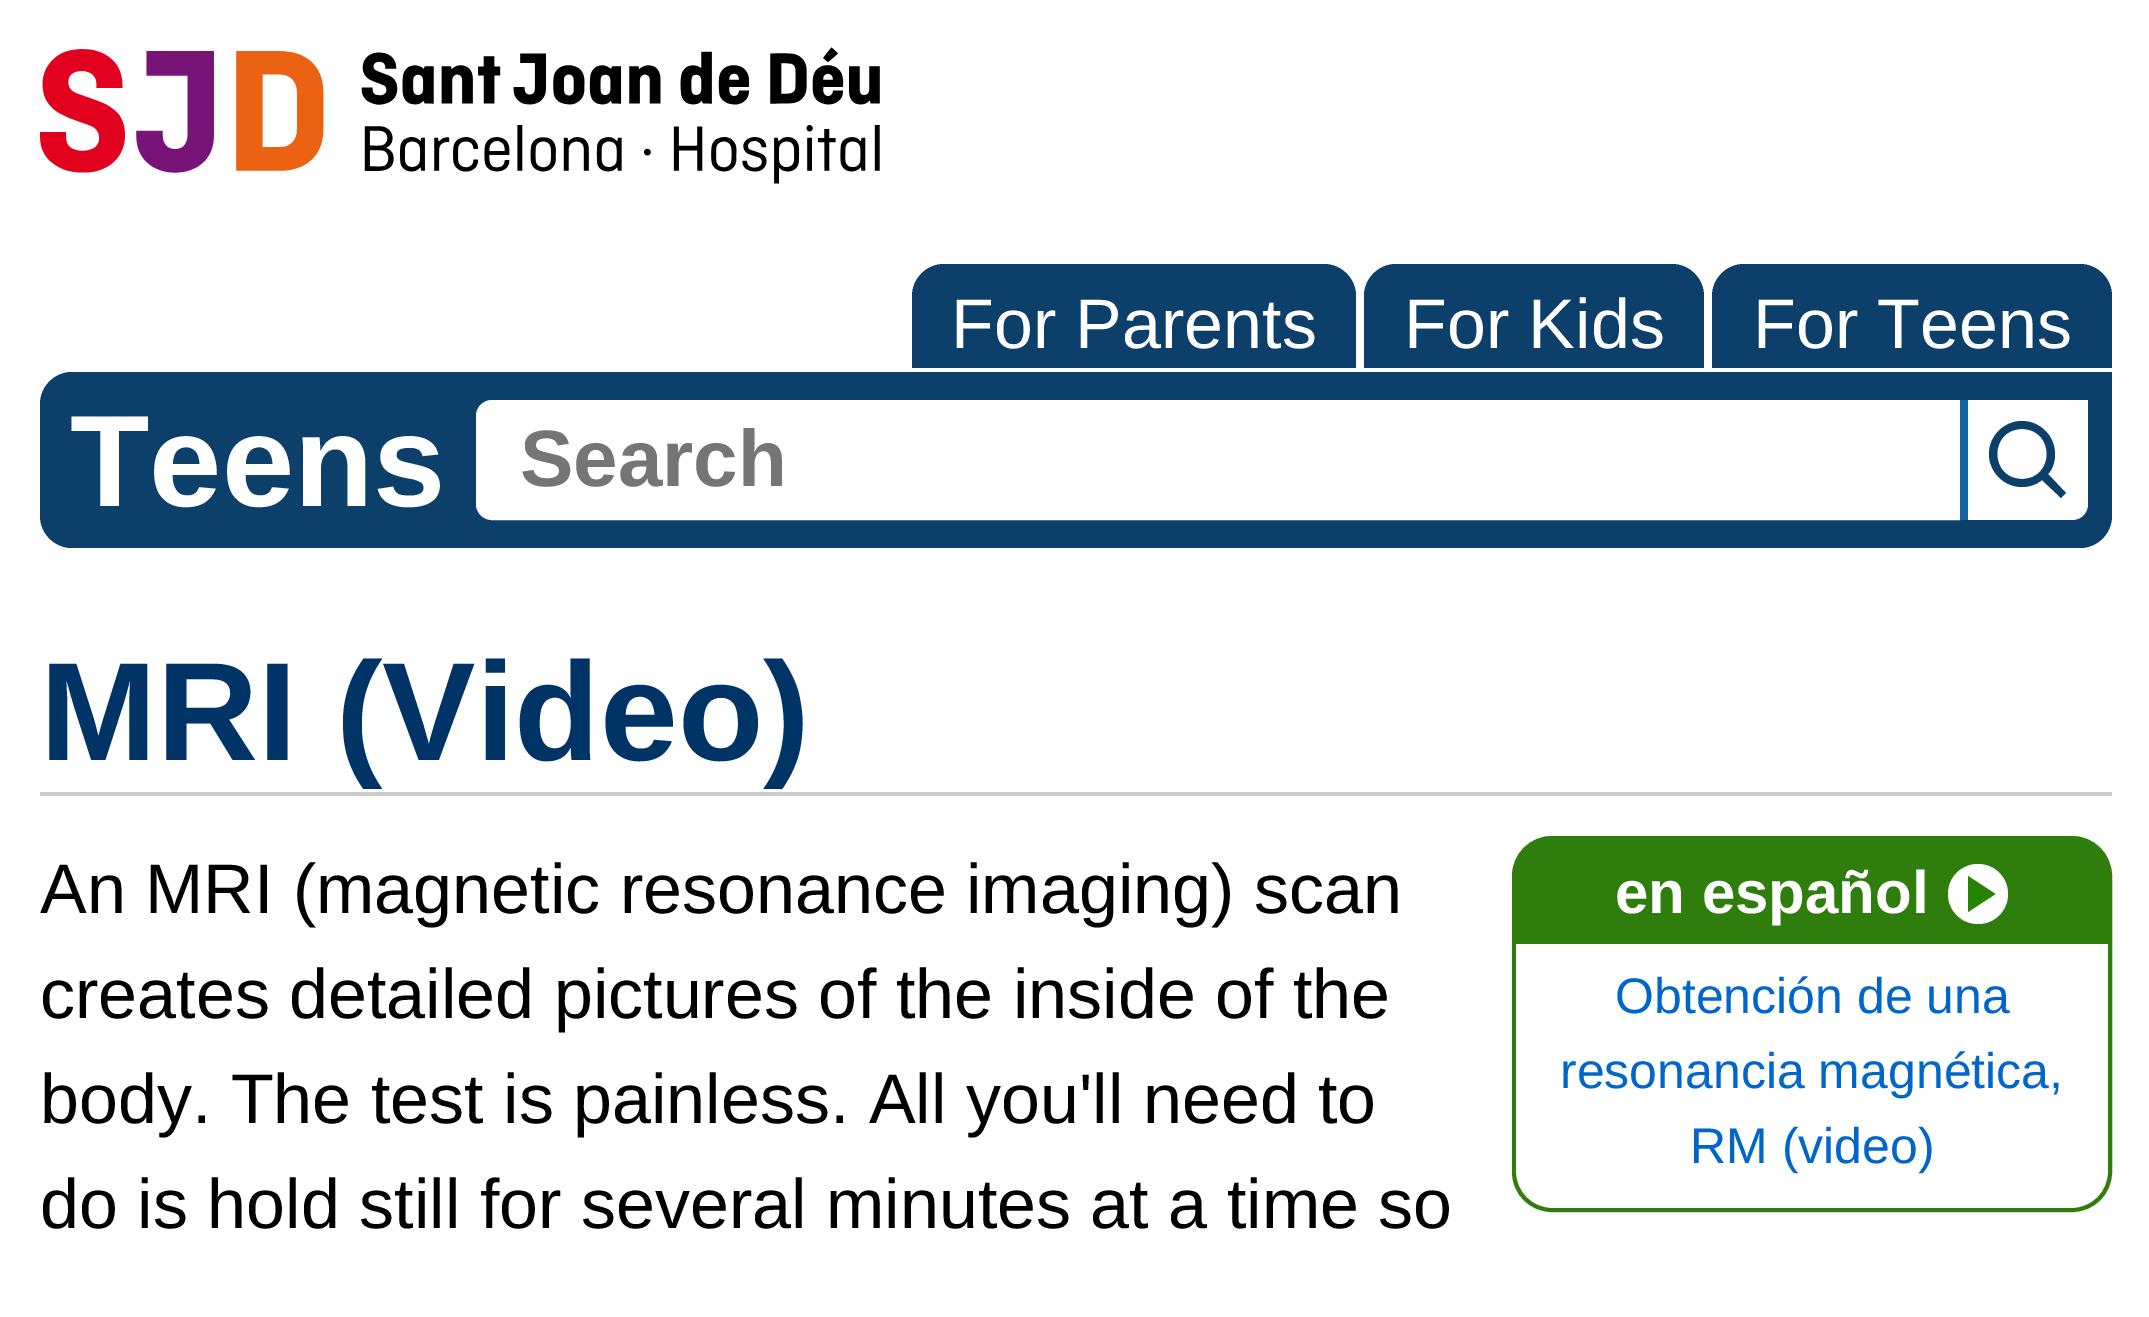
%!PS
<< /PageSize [2149 1317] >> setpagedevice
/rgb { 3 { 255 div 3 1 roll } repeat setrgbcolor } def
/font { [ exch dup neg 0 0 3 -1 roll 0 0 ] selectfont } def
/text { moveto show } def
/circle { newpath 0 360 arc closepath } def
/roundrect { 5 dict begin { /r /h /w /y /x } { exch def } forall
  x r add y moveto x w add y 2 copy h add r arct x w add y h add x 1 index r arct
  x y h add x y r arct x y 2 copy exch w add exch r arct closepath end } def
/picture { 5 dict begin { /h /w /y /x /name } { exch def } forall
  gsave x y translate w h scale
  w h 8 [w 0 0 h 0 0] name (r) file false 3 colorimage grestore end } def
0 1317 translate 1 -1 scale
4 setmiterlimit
255 255 255 rgb
0 0 2149 1317 rectfill
(img_01.rgb) 40 47 840 137 picture
13 63 107 rgb
944 264 moveto 380 0 rlineto 17.5 0 32 14.5 32 32 rcurveto 0 72 rlineto -444 0 rlineto 0 -72 rlineto 0 -17.5 14.5 -32 32 -32 rcurveto closepath fill
1396 264 moveto 276 0 rlineto 17.5 0 32 14.5 32 32 rcurveto 0 72 rlineto -340 0 rlineto 0 -72 rlineto 0 -17.5 14.5 -32 32 -32 rcurveto closepath fill
1744 264 moveto 336 0 rlineto 17.5 0 32 14.5 32 32 rcurveto 0 72 rlineto -400 0 rlineto 0 -72 rlineto 0 -17.5 14.5 -32 32 -32 rcurveto closepath fill
72 372 moveto 2040 0 rlineto 0 144 rlineto 0 17.5 -14.5 32 -32 32 rcurveto -2008 0 rlineto -17.5 0 -32 -14.5 -32 -32 rcurveto 0 -112 rlineto 0 -17.5 14.5 -32 32 -32 rcurveto closepath fill
255 255 255 rgb
492 412 moveto 1456 0 rlineto 0 96 rlineto -1456 0 rlineto -2 0 -4 -2 -4 -4 rcurveto 0 -88 rlineto 0 -2 2 -4 4 -4 rcurveto closepath gsave fill grestore
24 setlinewidth
stroke
21 100 162 rgb
1960 400 8 120 rectfill
255 255 255 rgb
1968 400 moveto 120 0 rlineto 0 104 rlineto 0 9 -7 16 -16 16 rcurveto -104 0 rlineto closepath fill
13 63 107 rgb
2022 487 moveto 7 0 14 -2 20 -7 rcurveto 19 18 rlineto 5 -5 rlineto -18 -19 rlineto 5 -5 7 -13 7 -20 rcurveto 0 -18 -15 -33 -33 -33 rcurveto -18 0 -33 15 -33 33 rcurveto 0 18 15 33 33 33 rcurveto closepath 2022 429 moveto 33 0 33 50 0 50 rcurveto -33 0 -33 -50 0 -50 rcurveto closepath fill
204 204 204 rgb
40 792 2072 4 rectfill
46 125 13 rgb
4 setlinewidth
1514 838 596 372 38 roundrect stroke
1548 840 moveto 528 0 rlineto 17.5 0 32 14.5 32 32 rcurveto 0 72 rlineto -592 0 rlineto 0 -72 rlineto 0 -17.5 14.5 -32 32 -32 rcurveto closepath fill
255 255 255 rgb
1978 894 30 circle fill
37 131 0 rgb
1968 876 moveto 0 36 rlineto 27.5 -18 rlineto closepath eofill
255 255 255 rgb
1516 944 moveto 592 0 rlineto 0 224 rlineto 0 22 -18 40 -40 40 rcurveto -512 0 rlineto -22 0 -40 -18 -40 -40 rcurveto closepath fill
/LiberationSans-Regular 70 font
(For Parents) 951 348 text
(For Kids) 1404 348 text
(For Teens) 1753 348 text
/LiberationSans-Bold 130 font
(Teens) 70 506 text
/LiberationSans-Bold 80 font
117 117 117 rgb
(Search) 520 486 text
/LiberationSans-Bold 140 font
0 51 102 rgb
(MRI \(Video\)) 40 760 text
/LiberationSans-Regular 70 font
0 0 0 rgb
(An MRI \(magnetic resonance imaging\) scan) 40 913 text
(creates detailed pictures of the inside of the) 40 1018 text
(body. The test is painless. All you'll need to) 40 1123 text
(do is hold still for several minutes at a time so) 40 1228 text
/LiberationSans-Bold 60 font
255 255 255 rgb
(en español) 1615 913 text
/LiberationSans-Regular 50 font
0 102 204 rgb
(Obtención de una) 1615 1013 text
(resonancia magnética,) 1560 1088 text
(RM \(video\)) 1690 1163 text
showpage
